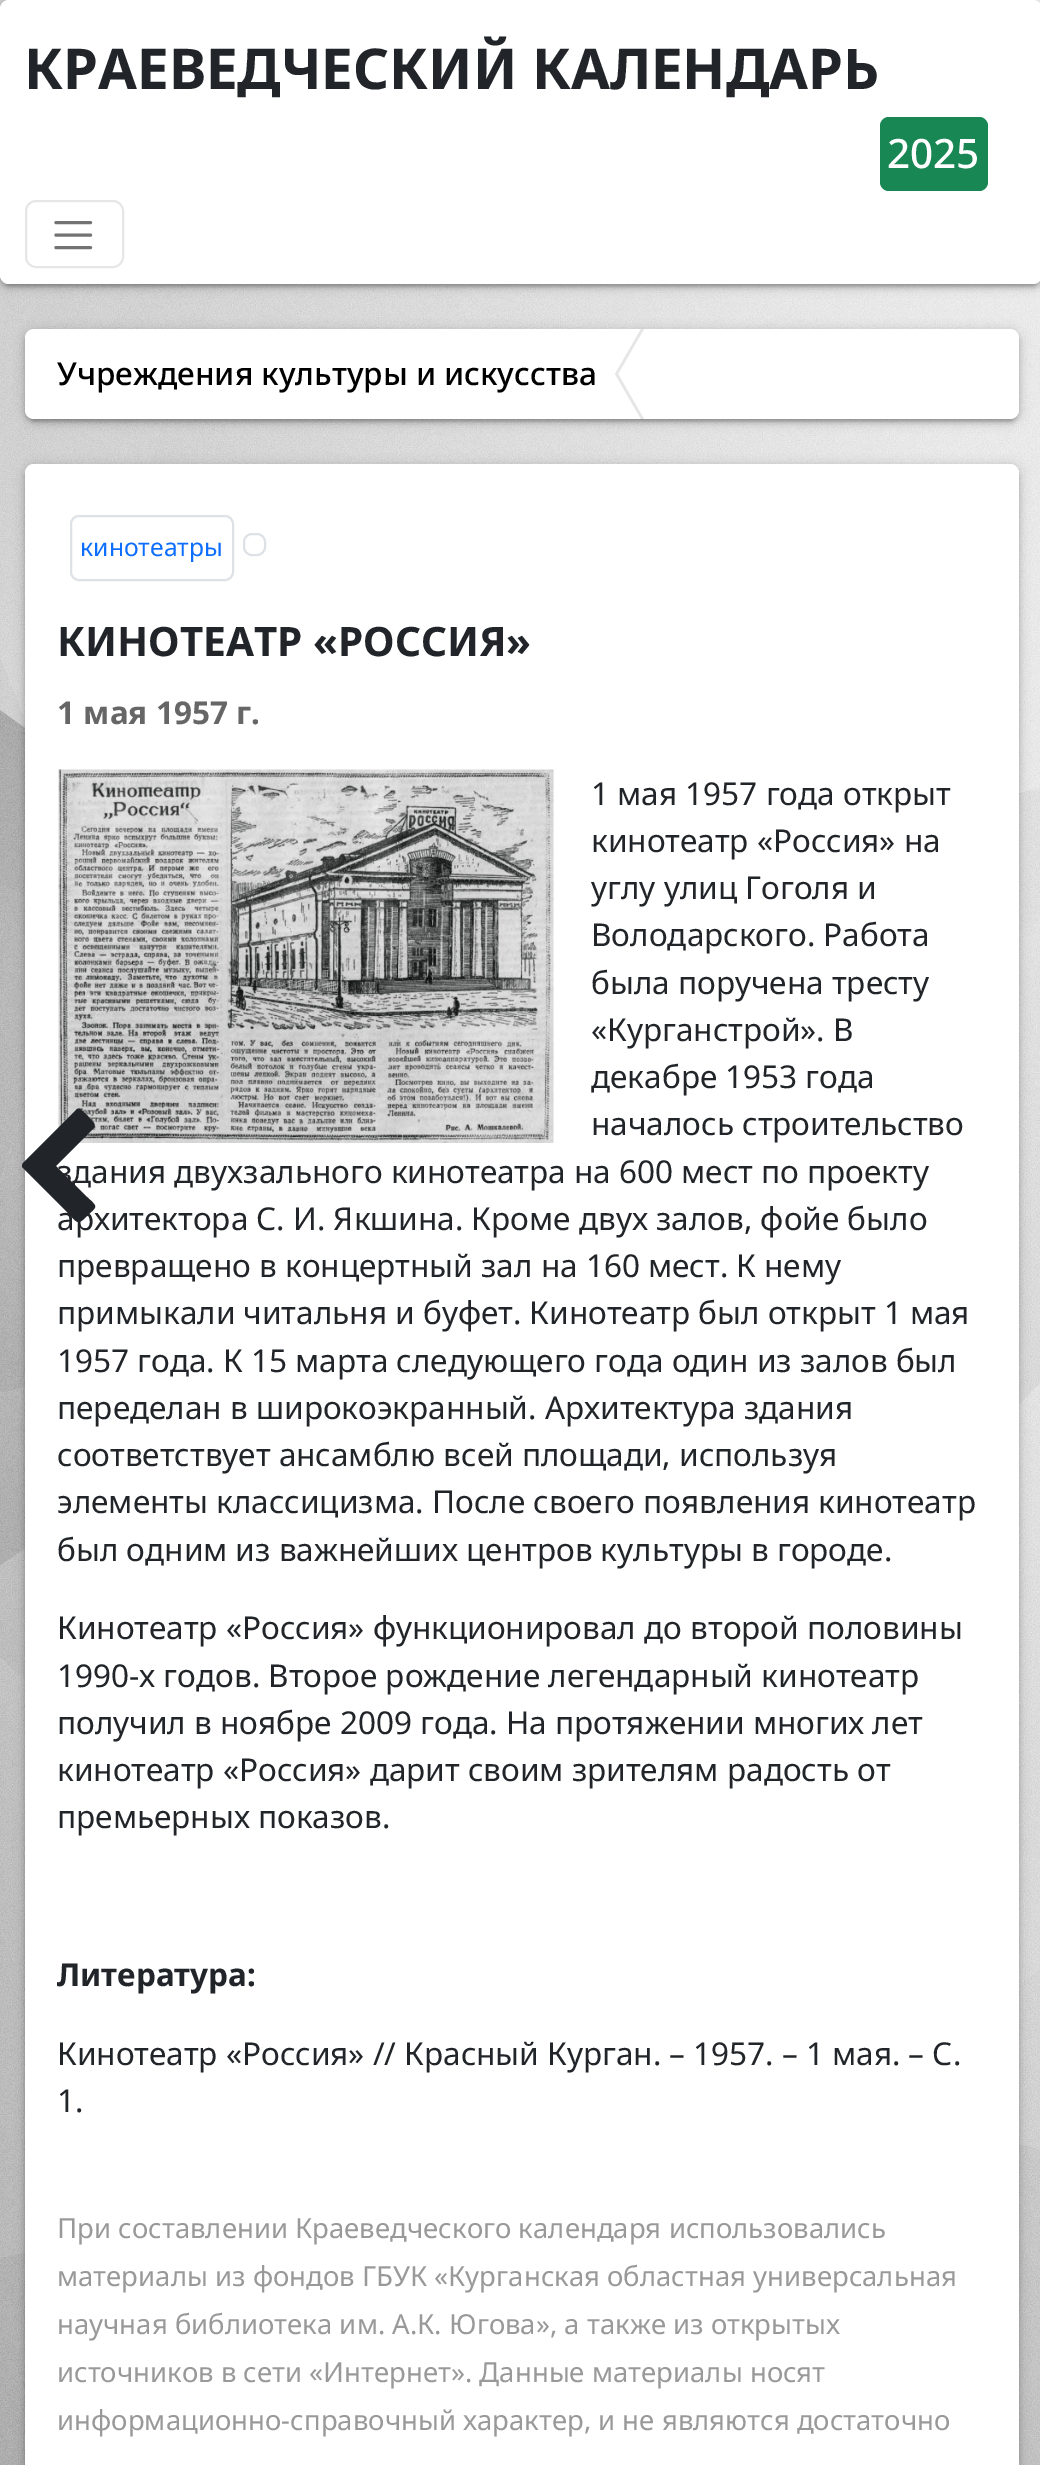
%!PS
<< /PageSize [1040 2465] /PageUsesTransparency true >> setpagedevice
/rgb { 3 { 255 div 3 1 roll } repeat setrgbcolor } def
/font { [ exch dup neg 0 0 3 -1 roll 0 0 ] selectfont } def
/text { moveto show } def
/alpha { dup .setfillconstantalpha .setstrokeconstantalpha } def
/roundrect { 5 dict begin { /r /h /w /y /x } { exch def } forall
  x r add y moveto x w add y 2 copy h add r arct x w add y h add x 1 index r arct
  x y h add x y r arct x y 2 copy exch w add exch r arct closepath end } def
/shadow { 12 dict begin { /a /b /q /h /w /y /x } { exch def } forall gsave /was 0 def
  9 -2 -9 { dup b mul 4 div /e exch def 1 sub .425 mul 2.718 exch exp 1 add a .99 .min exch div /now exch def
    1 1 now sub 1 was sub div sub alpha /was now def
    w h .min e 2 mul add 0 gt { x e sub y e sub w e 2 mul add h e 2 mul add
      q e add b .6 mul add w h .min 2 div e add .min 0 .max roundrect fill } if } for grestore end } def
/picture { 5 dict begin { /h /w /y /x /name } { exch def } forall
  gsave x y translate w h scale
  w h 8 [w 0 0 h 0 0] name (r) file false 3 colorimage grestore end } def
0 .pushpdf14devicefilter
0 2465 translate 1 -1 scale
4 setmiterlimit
255 255 255 rgb
0 0 1040 2465 rectfill
(img_01.rgb) 0 0 1040 2465 picture
0 0 0 rgb
0 2 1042 284 9 5.5 0.2 shadow
5 11 1032 275 5 1 0.12 shadow
0 5 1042 283 9 2 0.14 shadow
255 255 255 rgb
0 0 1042 284 9 roundrect fill
25 135 84 rgb
880 117 108 74 9 roundrect fill
230 230 230 rgb
2 setlinewidth
26 201 97 66 10 roundrect stroke
115 115 115 rgb
3.1 setlinewidth
1 setlinecap
56 222.5 moveto 34.5 0 rlineto 56 235 moveto 34.5 0 rlineto 56 247.5 moveto 34.5 0 rlineto stroke
0 0 0 rgb
25 331 994 90 9 5.5 0.2 shadow
29 340 986 81 5 1 0.12 shadow
25 333 994 90 9 2 0.14 shadow
255 255 255 rgb
25 329 994 90 9 roundrect fill
230 230 230 rgb
641 329 moveto 3 0 rlineto -26 45 rlineto -3 0 rlineto closepath fill
615 374 moveto 3 0 rlineto 26 45 rlineto -3 0 rlineto closepath fill
0 0 0 rgb
25 466 994 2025 9 5.5 0.2 shadow
25 468 994 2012 9 2 0.14 shadow
255 255 255 rgb
25 464 994 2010 9 roundrect fill
222 226 230 rgb
2 setlinewidth
0 setlinecap
71 516 162 64 8 roundrect stroke
244 534 21 21 8 roundrect stroke
(img_02.rgb) 58 769 496 374 picture
33 37 41 rgb
94 1128 moveto -38 38 rlineto 31 31 rlineto 12 11 10 9 -1 20 rcurveto -9 9 -9 5 -19 -5 rcurveto -45 -45 rlineto 0 -1 0 -2 1 -4 rcurveto 53 -53 rlineto 3 -4 7 2 10 4 rcurveto 8 9 rlineto 1 2 1 4 0 5 rcurveto closepath fill
/NotoSans-Bold 56.25 font
(КРАЕВЕДЧЕСКИЙ КАЛЕНДАРЬ) 24 89 text
/NotoSans-Medium 40.5 font
255 255 255 rgb
(2025) 887 168 text
/NotoSans-Medium 31.5 font
0 0 0 rgb
(Учреждения культуры и искусства) 57 385 text
/NotoSans-Regular 24.75 font
13 110 253 rgb
(кинотеатры) 80 556 text
/NotoSans-Bold 40.5 font
33 37 41 rgb
(КИНОТЕАТР «РОССИЯ») 57 656 text
/NotoSans-Bold 31.5 font
102 102 102 rgb
(1 мая 1957 г.) 57 724 text
/NotoSans-Regular 31.5 font
33 37 41 rgb
(1 мая 1957 года открыт) 591 805 text
(кинотеатр «Россия» на) 591 852 text
(углу улиц Гоголя и) 591 899 text
(Володарского. Работа) 591 946 text
(была поручена тресту) 591 994 text
(«Курганстрой». В) 591 1041 text
(декабре 1953 года) 591 1088 text
(началось строительство) 591 1135 text
(здания двухзального кинотеатра на 600 мест по проекту) 57 1183 text
(архитектора С. И. Якшина. Кроме двух залов, фойе было) 57 1230 text
(превращено в концертный зал на 160 мест. К нему) 57 1277 text
(примыкали читальня и буфет. Кинотеатр был открыт 1 мая) 57 1324 text
(1957 года. К 15 марта следующего года один из залов был) 57 1372 text
(переделан в широкоэкранный. Архитектура здания) 57 1419 text
(соответствует ансамблю всей площади, используя) 57 1466 text
(элементы классицизма. После своего появления кинотеатр) 57 1513 text
(был одним из важнейших центров культуры в городе.) 57 1561 text
(Кинотеатр «Россия» функционировал до второй половины) 57 1639 text
(1990-х годов. Второе рождение легендарный кинотеатр) 57 1687 text
(получил в ноябре 2009 года. На протяжении многих лет) 57 1734 text
(кинотеатр «Россия» дарит своим зрителям радость от) 57 1781 text
(премьерных показов.) 57 1828 text
/NotoSans-Bold 31.5 font
(Литература:) 57 1986 text
/NotoSans-Regular 31.5 font
(Кинотеатр «Россия» // Красный Курган. – 1957. – 1 мая. – С.) 57 2065 text
(1.) 57 2112 text
/NotoSans-Regular 27.55 font
153 153 153 rgb
(При составлении Краеведческого календаря использовались) 57 2238 text
(материалы из фондов ГБУК «Курганская областная универсальная) 57 2286 text
(научная библиотека им. А.К. Югова», а также из открытых) 57 2334 text
(источников в сети «Интернет». Данные материалы носят) 57 2382 text
(информационно-справочный характер, и не являются достаточно) 57 2430 text
.poppdf14devicefilter showpage
